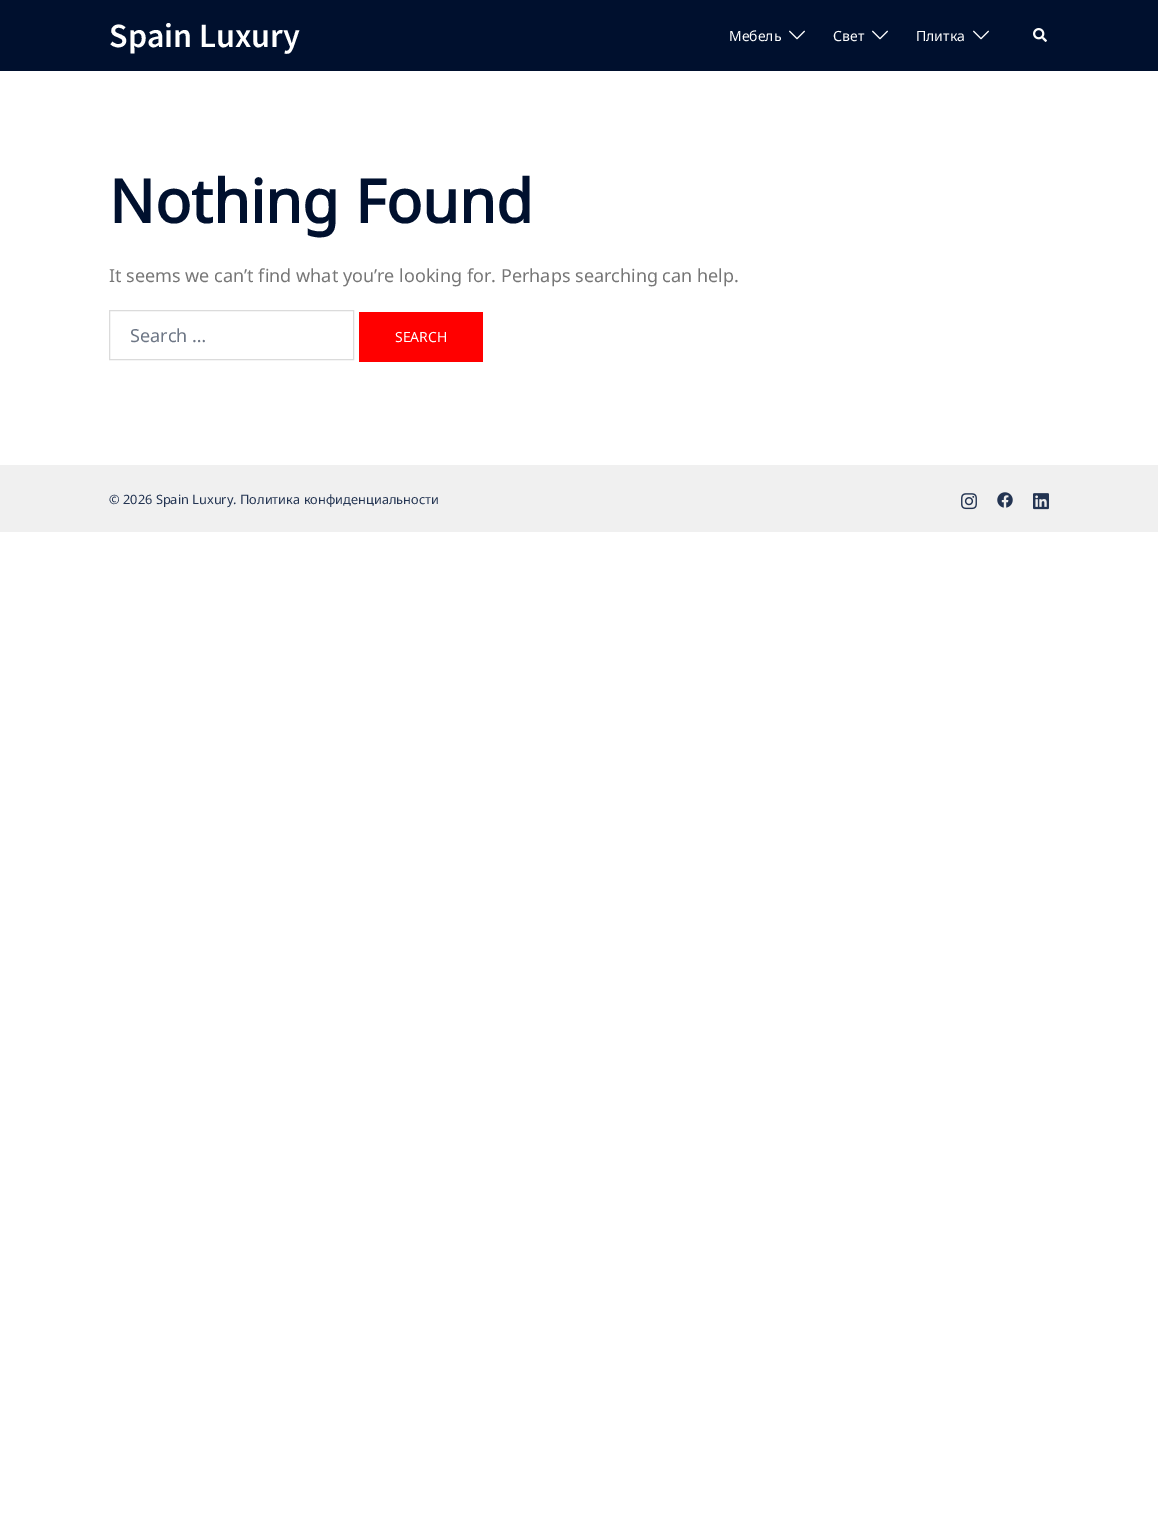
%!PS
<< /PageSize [1158 1528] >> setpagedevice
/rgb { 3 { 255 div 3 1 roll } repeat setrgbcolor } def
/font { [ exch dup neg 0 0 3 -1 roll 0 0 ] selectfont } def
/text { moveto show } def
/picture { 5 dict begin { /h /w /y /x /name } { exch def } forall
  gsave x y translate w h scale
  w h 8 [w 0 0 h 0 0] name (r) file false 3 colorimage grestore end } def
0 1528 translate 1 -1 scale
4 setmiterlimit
255 255 255 rgb
0 0 1158 1528 rectfill
0 16 46 rgb
0 0 1158 71 rectfill
(img_01.rgb) 789 30 16 10 picture
(img_01.rgb) 872 30 16 10 picture
(img_01.rgb) 973 30 16 10 picture
(img_02.rgb) 1033 28 14 14 picture
219 219 219 rgb
109.5 310.5 244 49 rectstroke
255 0 0 rgb
359 312 124 50 rectfill
240 240 240 rgb
0 465 1158 67 rectfill
(img_03.rgb) 961 493 16 17 picture
(img_04.rgb) 997 492 16 16 picture
(img_05.rgb) 1033 493 16 17 picture
/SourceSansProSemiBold-SemiBold 34 font
255 255 255 rgb
(Spain Luxury) 109 47 text
/NotoSans-Regular 14 font
(Мебель) 729 41 text
(Свет) 833 41 text
(Плитка) 916 41 text
/NotoSans-Bold 60 font
0 16 46 rgb
(Nothing Found) 109 223 text
/NotoSans-Regular 18 font
118 118 118 rgb
(It seems we can’t find what you’re looking for. Perhaps searching can help.) 109 282 text
109 118 133 rgb
(Search …) 130 342 text
/NotoSans-Regular 14 font
255 255 255 rgb
(SEARCH) 395 342 text
/NotoSans-Regular 12.8 font
35 52 82 rgb
(© 2026 Spain Luxury. Политика конфиденциальности) 109 504 text
showpage
